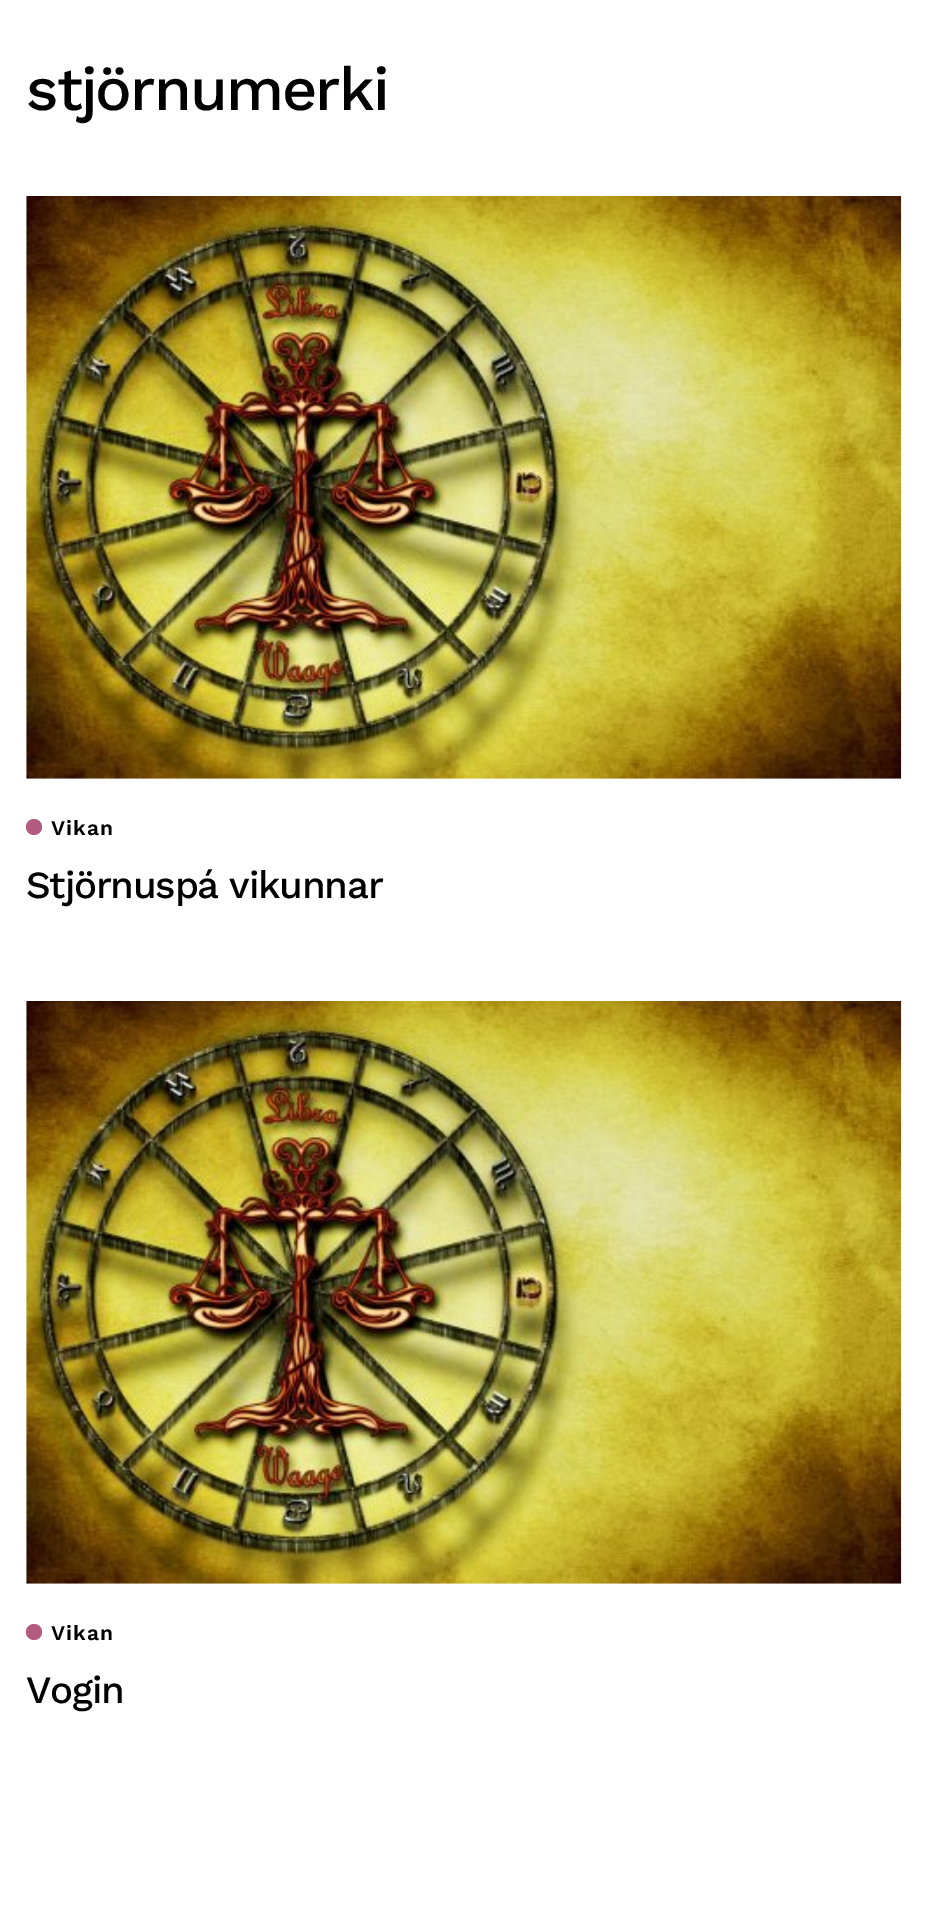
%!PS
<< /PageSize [927 1912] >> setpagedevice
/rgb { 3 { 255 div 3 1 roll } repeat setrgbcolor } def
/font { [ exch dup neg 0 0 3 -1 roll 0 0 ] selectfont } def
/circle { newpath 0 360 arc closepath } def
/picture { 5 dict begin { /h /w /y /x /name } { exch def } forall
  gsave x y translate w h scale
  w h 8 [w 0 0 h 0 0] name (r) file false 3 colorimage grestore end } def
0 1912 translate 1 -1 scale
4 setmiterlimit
255 255 255 rgb
0 0 927 1912 rectfill
(img_01.rgb) 26 196 876 583 picture
178 91 126 rgb
34 827 8 circle fill
(img_02.rgb) 26 1001 876 583 picture
34 1632 8 circle fill
/WorkSans-Medium 61.25 font
0 0 0 rgb
26 110 moveto -1.9 0 (stjörnumerki) ashow
/WorkSans-SemiBold 21 font
51 835 moveto 1 0 (Vikan) ashow
/WorkSans-Medium 38.5 font
26 898 moveto -1.25 0 (Stjörnuspá vikunnar) ashow
/WorkSans-SemiBold 21 font
51 1640 moveto 1 0 (Vikan) ashow
/WorkSans-Medium 38.5 font
26 1703 moveto -1.25 0 (Vogin) ashow
showpage
